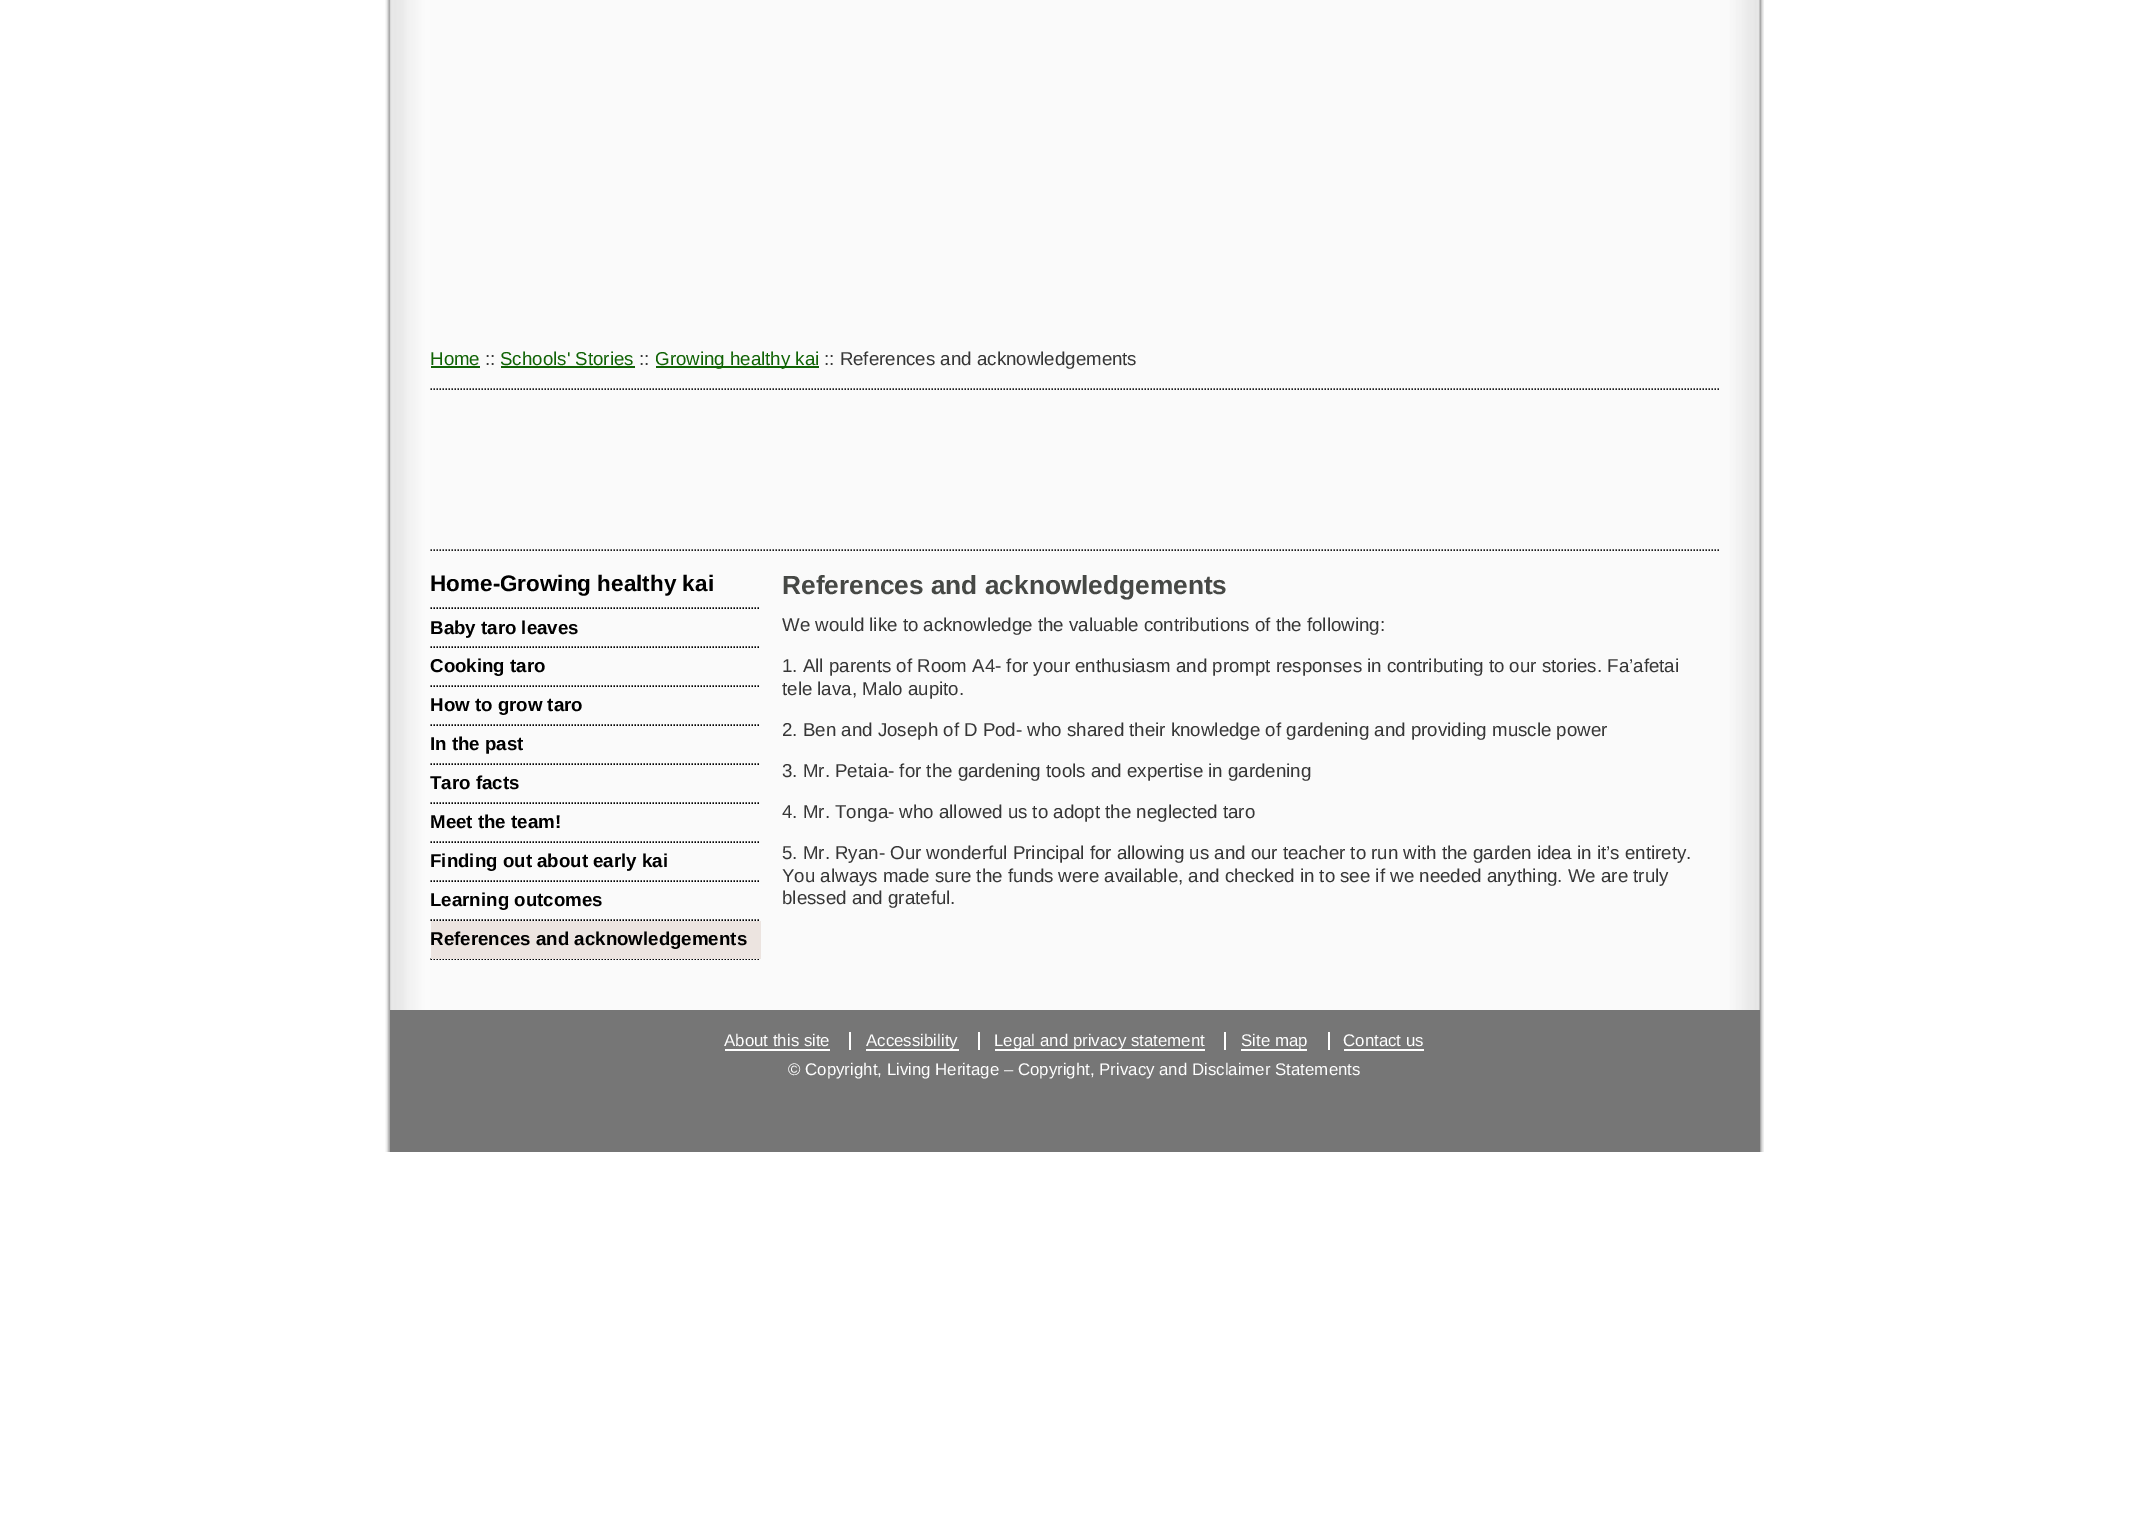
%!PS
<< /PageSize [2148 1514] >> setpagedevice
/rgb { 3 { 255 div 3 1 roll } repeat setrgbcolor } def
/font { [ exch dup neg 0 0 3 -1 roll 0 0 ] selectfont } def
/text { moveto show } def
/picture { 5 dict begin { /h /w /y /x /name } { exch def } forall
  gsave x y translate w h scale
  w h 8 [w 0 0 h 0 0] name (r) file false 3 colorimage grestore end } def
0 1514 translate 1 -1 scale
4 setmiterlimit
255 255 255 rgb
0 0 2148 1514 rectfill
(img_01.rgb) 385 0 1379 1152 picture
16 99 5 rgb
431 366 49 2 rectfill
501 366 134 2 rectfill
656 366 163 2 rectfill
28 28 28 rgb
1.5 setlinewidth
[1.5 1.5] 0 setdash
430.5 389 moveto 1290 0 rlineto stroke
430.5 550 moveto 1290 0 rlineto stroke
0 0 0 rgb
430.5 608 moveto 330 0 rlineto stroke
430.5 647 moveto 330 0 rlineto stroke
430.5 686 moveto 330 0 rlineto stroke
430.5 725 moveto 330 0 rlineto stroke
430.5 764 moveto 330 0 rlineto stroke
430.5 803 moveto 330 0 rlineto stroke
430.5 842 moveto 330 0 rlineto stroke
430.5 881 moveto 330 0 rlineto stroke
430.5 920 moveto 330 0 rlineto stroke
430.5 959 moveto 330 0 rlineto stroke
236 228 224 rgb
431 921 330 38 rectfill
118 118 118 rgb
390 1010 1370 142 rectfill
255 255 255 rgb
725 1049 105 2 rectfill
849 1032 2 18 rectfill
866 1049 93 2 rectfill
978 1032 2 18 rectfill
995 1049 210 2 rectfill
1224 1032 2 18 rectfill
1241 1049 66 2 rectfill
1328 1032 2 18 rectfill
1344 1049 80 2 rectfill
/LiberationSans-Regular 18.7 font
16 99 5 rgb
(Home) 430 365 text
54 54 54 rgb
(::) 485 365 text
16 99 5 rgb
(Schools' Stories) 500 365 text
54 54 54 rgb
(::) 639 365 text
16 99 5 rgb
(Growing healthy kai) 655 365 text
54 54 54 rgb
(:: References and acknowledgements) 824 365 text
/LiberationSans-Bold 22.5 font
0 0 0 rgb
(Home-Growing healthy kai) 430 591 text
/LiberationSans-Bold 18.7 font
(Baby taro leaves) 430 634 text
(Cooking taro) 430 672 text
(How to grow taro) 430 711 text
(In the past) 430 750 text
(Taro facts) 430 789 text
(Meet the team!) 430 828 text
(Finding out about early kai) 430 867 text
(Learning outcomes) 430 906 text
(References and acknowledgements) 430 945 text
/LiberationSans-Bold 26.25 font
70 72 69 rgb
(References and acknowledgements) 782 594 text
/LiberationSans-Regular 18.7 font
54 54 54 rgb
(We would like to acknowledge the valuable contributions of the following:) 782 631 text
(1. All parents of Room A4- for your enthusiasm and prompt responses in contributing to our stories. Fa’afetai) 782 672 text
(tele lava, Malo aupito.) 782 695 text
(2. Ben and Joseph of D Pod- who shared their knowledge of gardening and providing muscle power) 782 736 text
(3. Mr. Petaia- for the gardening tools and expertise in gardening) 782 777 text
(4. Mr. Tonga- who allowed us to adopt the neglected taro) 782 818 text
(5. Mr. Ryan- Our wonderful Principal for allowing us and our teacher to run with the garden idea in it’s entirety.) 782 859 text
(You always made sure the funds were available, and checked in to see if we needed anything. We are truly) 782 882 text
(blessed and grateful.) 782 904 text
/LiberationSans-Regular 16.85 font
255 255 255 rgb
(About this site) 724 1046 text
(Accessibility) 866 1046 text
(Legal and privacy statement) 994 1046 text
(Site map) 1241 1046 text
(Contact us) 1343 1046 text
(© Copyright, Living Heritage – Copyright, Privacy and Disclaimer Statements) 788 1075 text
showpage
